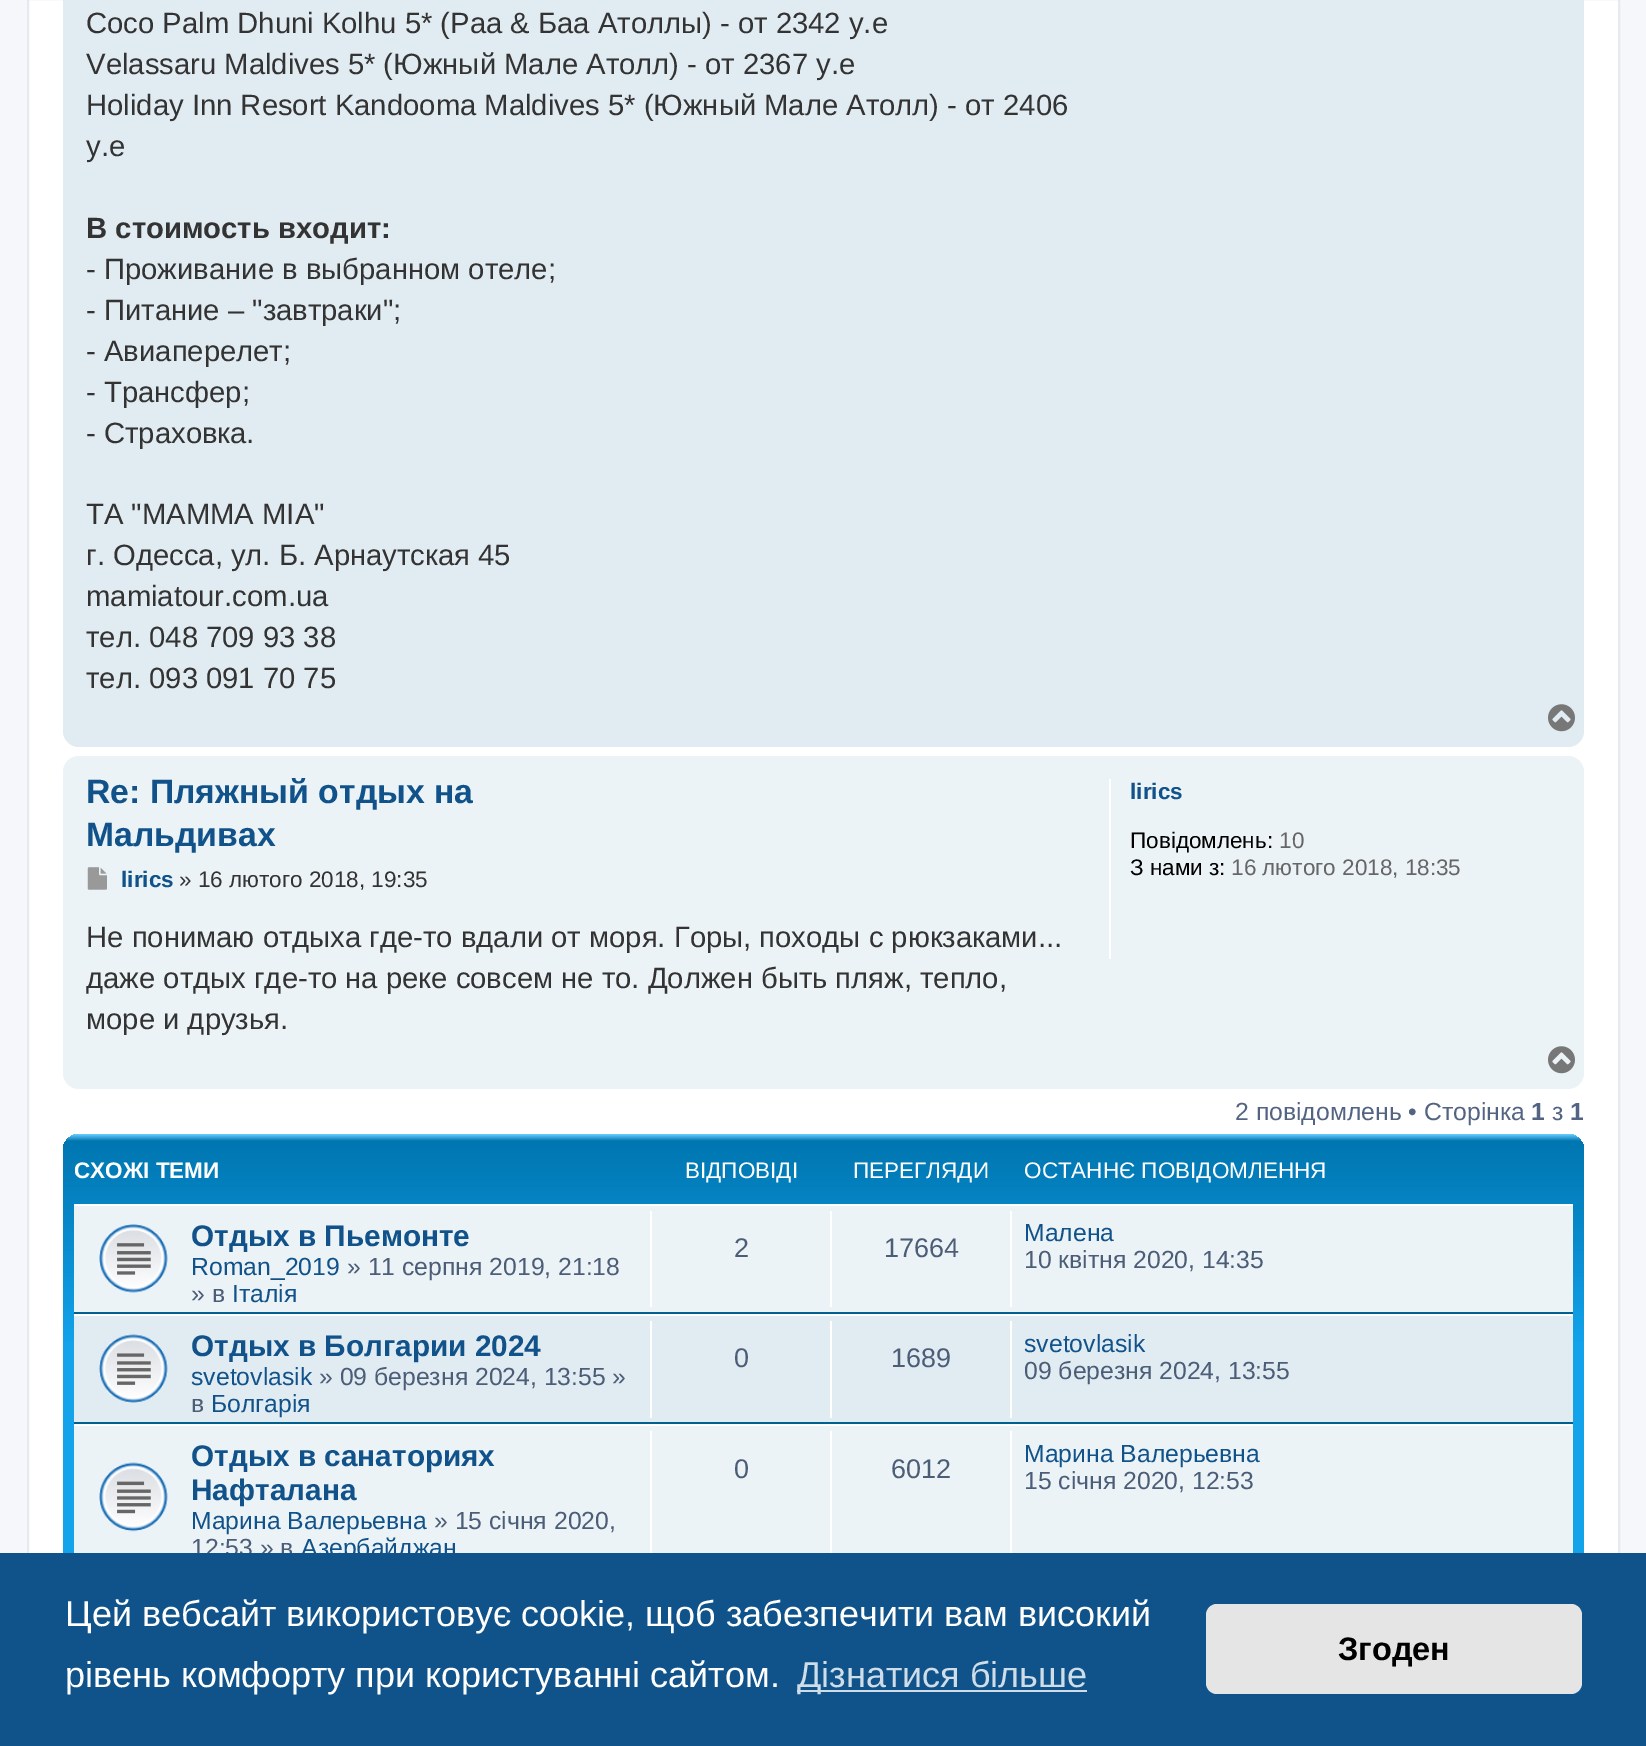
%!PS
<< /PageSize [1646 1746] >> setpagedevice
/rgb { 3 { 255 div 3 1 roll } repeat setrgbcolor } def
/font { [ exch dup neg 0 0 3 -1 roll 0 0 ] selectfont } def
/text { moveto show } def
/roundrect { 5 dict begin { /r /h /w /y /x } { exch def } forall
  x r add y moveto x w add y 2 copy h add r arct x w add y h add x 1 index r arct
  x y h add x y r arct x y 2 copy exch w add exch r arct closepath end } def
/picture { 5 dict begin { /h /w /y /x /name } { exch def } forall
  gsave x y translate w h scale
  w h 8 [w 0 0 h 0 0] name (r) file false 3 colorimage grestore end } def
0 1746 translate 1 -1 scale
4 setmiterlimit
245 247 250 rgb
0 0 1646 1746 rectfill
255 255 255 rgb
29 0 1589 1553 rectfill
230 233 237 rgb
2 setlinewidth
28 -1 1591 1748 rectstroke
225 235 242 rgb
63 -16 1521 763 16 roundrect fill
(img_01.rgb) 1548 704 27 28 picture
236 243 247 rgb
63 756 1521 333 16 roundrect fill
(img_02.rgb) 87 867 20 23 picture
255 255 255 rgb
1109 779 2 180 rectfill
(img_03.rgb) 1548 1046 27 28 picture
gsave 63 1134 1521 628 16 roundrect clip newpath
<< /ShadingType 2 /ColorSpace /DeviceRGB /Coords [824 1134 824 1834] /Extend [true true] /Function << /FunctionType 3 /Domain [0 1] /Functions [<< /FunctionType 2 /Domain [0 1] /C0 [0.416 0.808 1] /C1 [0 0.463 0.694] /N 1 >> << /FunctionType 2 /Domain [0 1] /C0 [0 0.463 0.694] /C1 [0.071 0.639 0.922] /N 1 >> << /FunctionType 2 /Domain [0 1] /C0 [0.071 0.639 0.922] /C1 [0.071 0.639 0.922] /N 1 >>] /Bounds [0.01 0.3] /Encode [0 1 0 1 0 1] >> >> shfill grestore
236 243 247 rgb
74 1206 1499 106 rectfill
255 255 255 rgb
74 1204 1499 2 rectfill
0 96 143 rgb
74 1312 1499 2 rectfill
(img_04.rgb) 99 1224 69 69 picture
255 255 255 rgb
650 1211 2 96 rectfill
830 1211 2 96 rectfill
1010 1211 2 96 rectfill
225 235 242 rgb
74 1316 1499 106 rectfill
255 255 255 rgb
74 1314 1499 2 rectfill
0 96 143 rgb
74 1422 1499 2 rectfill
(img_05.rgb) 99 1334 69 69 picture
255 255 255 rgb
650 1321 2 97 rectfill
830 1321 2 97 rectfill
1010 1321 2 97 rectfill
236 243 247 rgb
74 1426 1499 127 rectfill
255 255 255 rgb
74 1424 1499 2 rectfill
(img_06.rgb) 99 1462 69 70 picture
650 1431 2 122 rectfill
830 1431 2 122 rectfill
1010 1431 2 122 rectfill
/LiberationSans-Regular 29.25 font
51 51 51 rgb
(Coco Palm Dhuni Kolhu 5* \(Раа & Баа Атоллы\) - от 2342 у.е) 86 33 text
(Velassaru Maldives 5* \(Южный Мале Атолл\) - от 2367 у.е) 86 74 text
(Holiday Inn Resort Kandooma Maldives 5* \(Южный Мале Атолл\) - от 2406) 86 115 text
(у.е) 86 156 text
/LiberationSans-Bold 29.25 font
(В стоимость входит:) 86 238 text
/LiberationSans-Regular 29.25 font
(- Проживание в выбранном отеле;) 86 279 text
(- Питание – "завтраки";) 86 320 text
(- Авиаперелет;) 86 361 text
(- Трансфер;) 86 402 text
(- Страховка.) 86 443 text
(ТА "МАММА МІА") 86 524 text
(г. Одесса, ул. Б. Арнаутская 45) 86 565 text
(mamiatour.com.ua) 86 606 text
(тел. 048 709 93 38) 86 647 text
(тел. 093 091 70 75) 86 688 text
/LiberationSans-Bold 33.75 font
16 82 137 rgb
(Re: Пляжный отдых на) 86 803 text
(Мальдивах) 86 846 text
/LiberationSans-Bold 22.5 font
(lirics) 121 887 text
/LiberationSans-Regular 22.5 font
51 51 51 rgb
(» 16 лютого 2018, 19:35) 179 887 text
/LiberationSans-Regular 29.25 font
(Не понимаю отдыха где-то вдали от моря. Горы, походы с рюкзаками...) 86 947 text
gsave
86 918 987 126 rectclip
(даже отдых где-то на реке совсем не то. Должен быть пляж, тепло,) 86 988 text
grestore
(море и друзья.) 86 1029 text
/LiberationSans-Bold 22.5 font
16 82 137 rgb
(lirics) 1130 799 text
/LiberationSans-Regular 22.5 font
0 0 0 rgb
(Повідомлень:) 1130 848 text
102 102 102 rgb
(10) 1279 848 text
0 0 0 rgb
(З нами з:) 1130 875 text
102 102 102 rgb
(16 лютого 2018, 18:35) 1231 875 text
/LiberationSans-Regular 24.75 font
83 100 130 rgb
(2 повідомлень • Сторінка) 1235 1120 text
/LiberationSans-Bold 24.75 font
(1) 1531 1120 text
/LiberationSans-Regular 24.75 font
(з) 1552 1120 text
/LiberationSans-Bold 24.75 font
(1) 1570 1120 text
/LiberationSans-Bold 22.5 font
255 255 255 rgb
(СХОЖІ ТЕМИ) 74 1178 text
/LiberationSans-Regular 22.5 font
(ВІДПОВІДІ) 685 1178 text
(ПЕРЕГЛЯДИ) 853 1178 text
(ОСТАННЄ ПОВІДОМЛЕННЯ) 1024 1178 text
/LiberationSans-Bold 29.75 font
16 82 137 rgb
(Отдых в Пьемонте) 191 1246 text
/LiberationSans-Regular 24.75 font
(Roman_2019) 191 1275 text
76 93 119 rgb
(» 11 серпня 2019, 21:18) 347 1275 text
(» в) 191 1302 text
16 82 137 rgb
(Італія) 232 1302 text
/LiberationSans-Regular 27 font
76 93 119 rgb
(2) 734 1257 text
(17664) 884 1257 text
/LiberationSans-Regular 24.75 font
16 82 137 rgb
(Малена) 1024 1241 text
76 93 119 rgb
(10 квітня 2020, 14:35) 1024 1268 text
/LiberationSans-Bold 29.75 font
16 82 137 rgb
(Отдых в Болгарии 2024) 191 1356 text
/LiberationSans-Regular 24.75 font
(svetovlasik) 191 1385 text
76 93 119 rgb
(» 09 березня 2024, 13:55 ») 319 1385 text
(в) 191 1412 text
16 82 137 rgb
(Болгарія) 211 1412 text
/LiberationSans-Regular 27 font
76 93 119 rgb
(0) 734 1367 text
(1689) 891 1367 text
/LiberationSans-Regular 24.75 font
16 82 137 rgb
(svetovlasik) 1024 1352 text
76 93 119 rgb
(09 березня 2024, 13:55) 1024 1379 text
/LiberationSans-Bold 29.75 font
16 82 137 rgb
(Отдых в санаториях) 191 1466 text
(Нафталана) 191 1500 text
/LiberationSans-Regular 24.75 font
(Марина Валерьевна) 191 1529 text
76 93 119 rgb
(» 15 січня 2020,) 434 1529 text
(12:53 » в) 191 1556 text
16 82 137 rgb
(Азербайджан) 301 1556 text
/LiberationSans-Regular 27 font
76 93 119 rgb
(0) 734 1478 text
(6012) 891 1478 text
/LiberationSans-Regular 24.75 font
16 82 137 rgb
(Марина Валерьевна) 1024 1462 text
76 93 119 rgb
(15 січня 2020, 12:53) 1024 1489 text
15 83 138 rgb
0 1553 1646 193 rectfill
/LiberationSans-Regular 36 font
255 255 255 rgb
(Цей вебсайт використовує cookie, щоб забезпечити вам високий) 65 1626 text
(рівень комфорту при користуванні сайтом.) 65 1687 text
207 221 232 rgb
797 1690 290 2 rectfill
(Дізнатися більше) 797 1687 text
229 229 229 rgb
1206 1604 376 90 11 roundrect fill
/LiberationSans-Bold 32.5 font
0 0 0 rgb
(Згоден) 1338 1660 text
showpage
